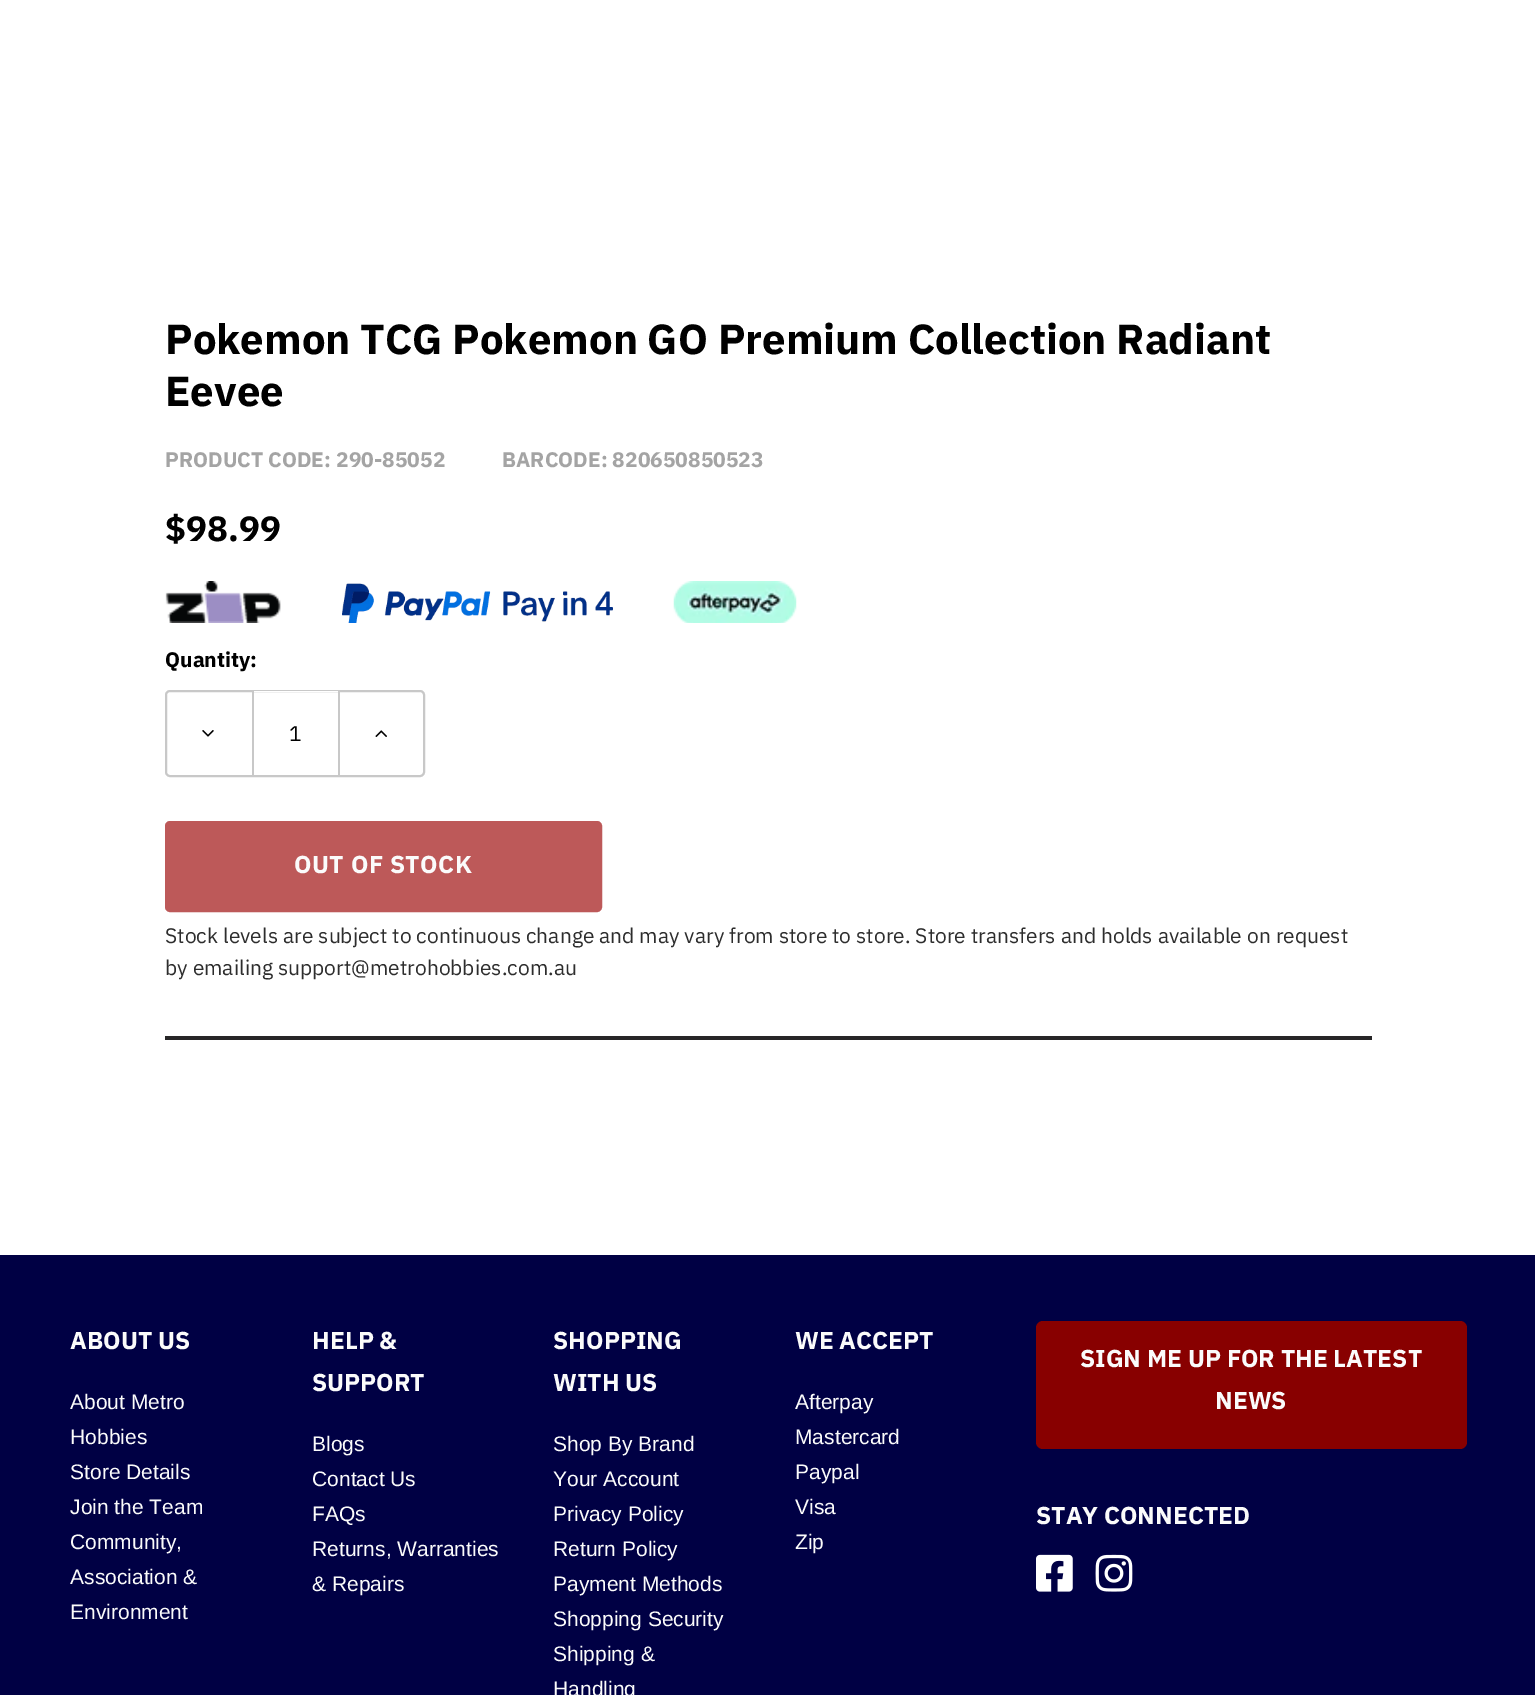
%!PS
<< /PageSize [1535 1695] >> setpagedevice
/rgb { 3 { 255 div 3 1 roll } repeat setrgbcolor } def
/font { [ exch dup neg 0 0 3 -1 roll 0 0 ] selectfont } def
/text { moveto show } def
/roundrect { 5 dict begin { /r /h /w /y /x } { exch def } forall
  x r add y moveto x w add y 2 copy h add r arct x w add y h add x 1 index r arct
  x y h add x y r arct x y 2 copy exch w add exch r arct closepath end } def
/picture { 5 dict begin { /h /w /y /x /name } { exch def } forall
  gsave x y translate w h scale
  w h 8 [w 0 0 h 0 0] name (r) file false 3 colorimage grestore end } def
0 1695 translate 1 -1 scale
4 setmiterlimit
255 255 255 rgb
0 0 1535 1695 rectfill
(img_01.rgb) 165 581 116 42 picture
(img_02.rgb) 342 583 271 40 picture
(img_03.rgb) 673 581 124 42 picture
200 200 200 rgb
2 setlinewidth
166 691 258 85 4 roundrect stroke
(img_04.rgb) 202 730 12 7 picture
255 255 255 rgb
254 691 84 1 rectfill
200 200 200 rgb
338 691 2 84 rectfill
252 691 2 84 rectfill
(img_05.rgb) 375 730 12 7 picture
189 89 89 rgb
166 822 435 89 4 roundrect gsave fill grestore
stroke
39 38 39 rgb
165 1036 1207 4 rectfill
0 0 68 rgb
0 1255 1535 440 rectfill
136 0 0 rgb
1036 1321 431 128 7 roundrect fill
(img_06.rgb) 1036 1554 37 38 picture
(img_07.rgb) 1095 1554 38 38 picture
/IBMPlexSans-Bold 42 font
0 0 0 rgb
(Pokemon TCG Pokemon GO Premium Collection Radiant) 165 354 text
(Eevee) 165 406 text
/IBMPlexSans-Bold 21 font
164 164 164 rgb
(PRODUCT CODE: 290-85052) 165 467 text
(BARCODE: 820650850523) 502 467 text
/IBMPlexSans-Bold 35 font
0 0 0 rgb
($98.99) 165 541 text
/IBMPlexSans-Bold 21 font
(Quantity:) 165 667 text
/IBMPlexSans-Regular 21 font
(1) 289 741 text
/IBMPlexSans-Bold 24.5 font
251 251 251 rgb
294 873 moveto 0.5 0 (OUT OF STOCK) ashow
/IBMPlexSans-Regular 21 font
45 45 45 rgb
(Stock levels are subject to continuous change and may vary from store to store. Store transfers and holds available on request) 165 943 text
(by emailing support@metrohobbies.com.au) 165 975 text
/IBMPlexSans-Bold 24.5 font
251 251 251 rgb
(ABOUT US) 70 1349 text
/Arimo-Regular 21 font
(About Metro) 70 1409 text
(Hobbies) 70 1444 text
(Store Details) 70 1479 text
(Join the Team) 70 1514 text
(Community,) 70 1549 text
(Association &) 70 1584 text
(Environment) 70 1619 text
/IBMPlexSans-Bold 24.5 font
(HELP &) 312 1349 text
(SUPPORT) 312 1391 text
/Arimo-Regular 21 font
(Blogs) 312 1451 text
(Contact Us) 312 1486 text
(FAQs) 312 1521 text
(Returns, Warranties) 312 1556 text
(& Repairs) 312 1591 text
/IBMPlexSans-Bold 24.5 font
(SHOPPING) 553 1349 text
(WITH US) 553 1391 text
/Arimo-Regular 21 font
(Shop By Brand) 553 1451 text
(Your Account) 553 1486 text
(Privacy Policy) 553 1521 text
(Return Policy) 553 1556 text
(Payment Methods) 553 1591 text
(Shopping Security) 553 1626 text
(Shipping &) 553 1661 text
(Handling) 553 1696 text
/IBMPlexSans-Bold 24.5 font
(WE ACCEPT) 795 1349 text
/Arimo-Regular 21 font
(Afterpay) 795 1409 text
(Mastercard) 795 1444 text
(Paypal) 795 1479 text
(Visa) 795 1514 text
(Zip) 795 1549 text
/IBMPlexSans-Bold 24.5 font
(SIGN ME UP FOR THE LATEST) 1080 1367 text
(NEWS) 1215 1409 text
(STAY CONNECTED) 1036 1524 text
showpage
